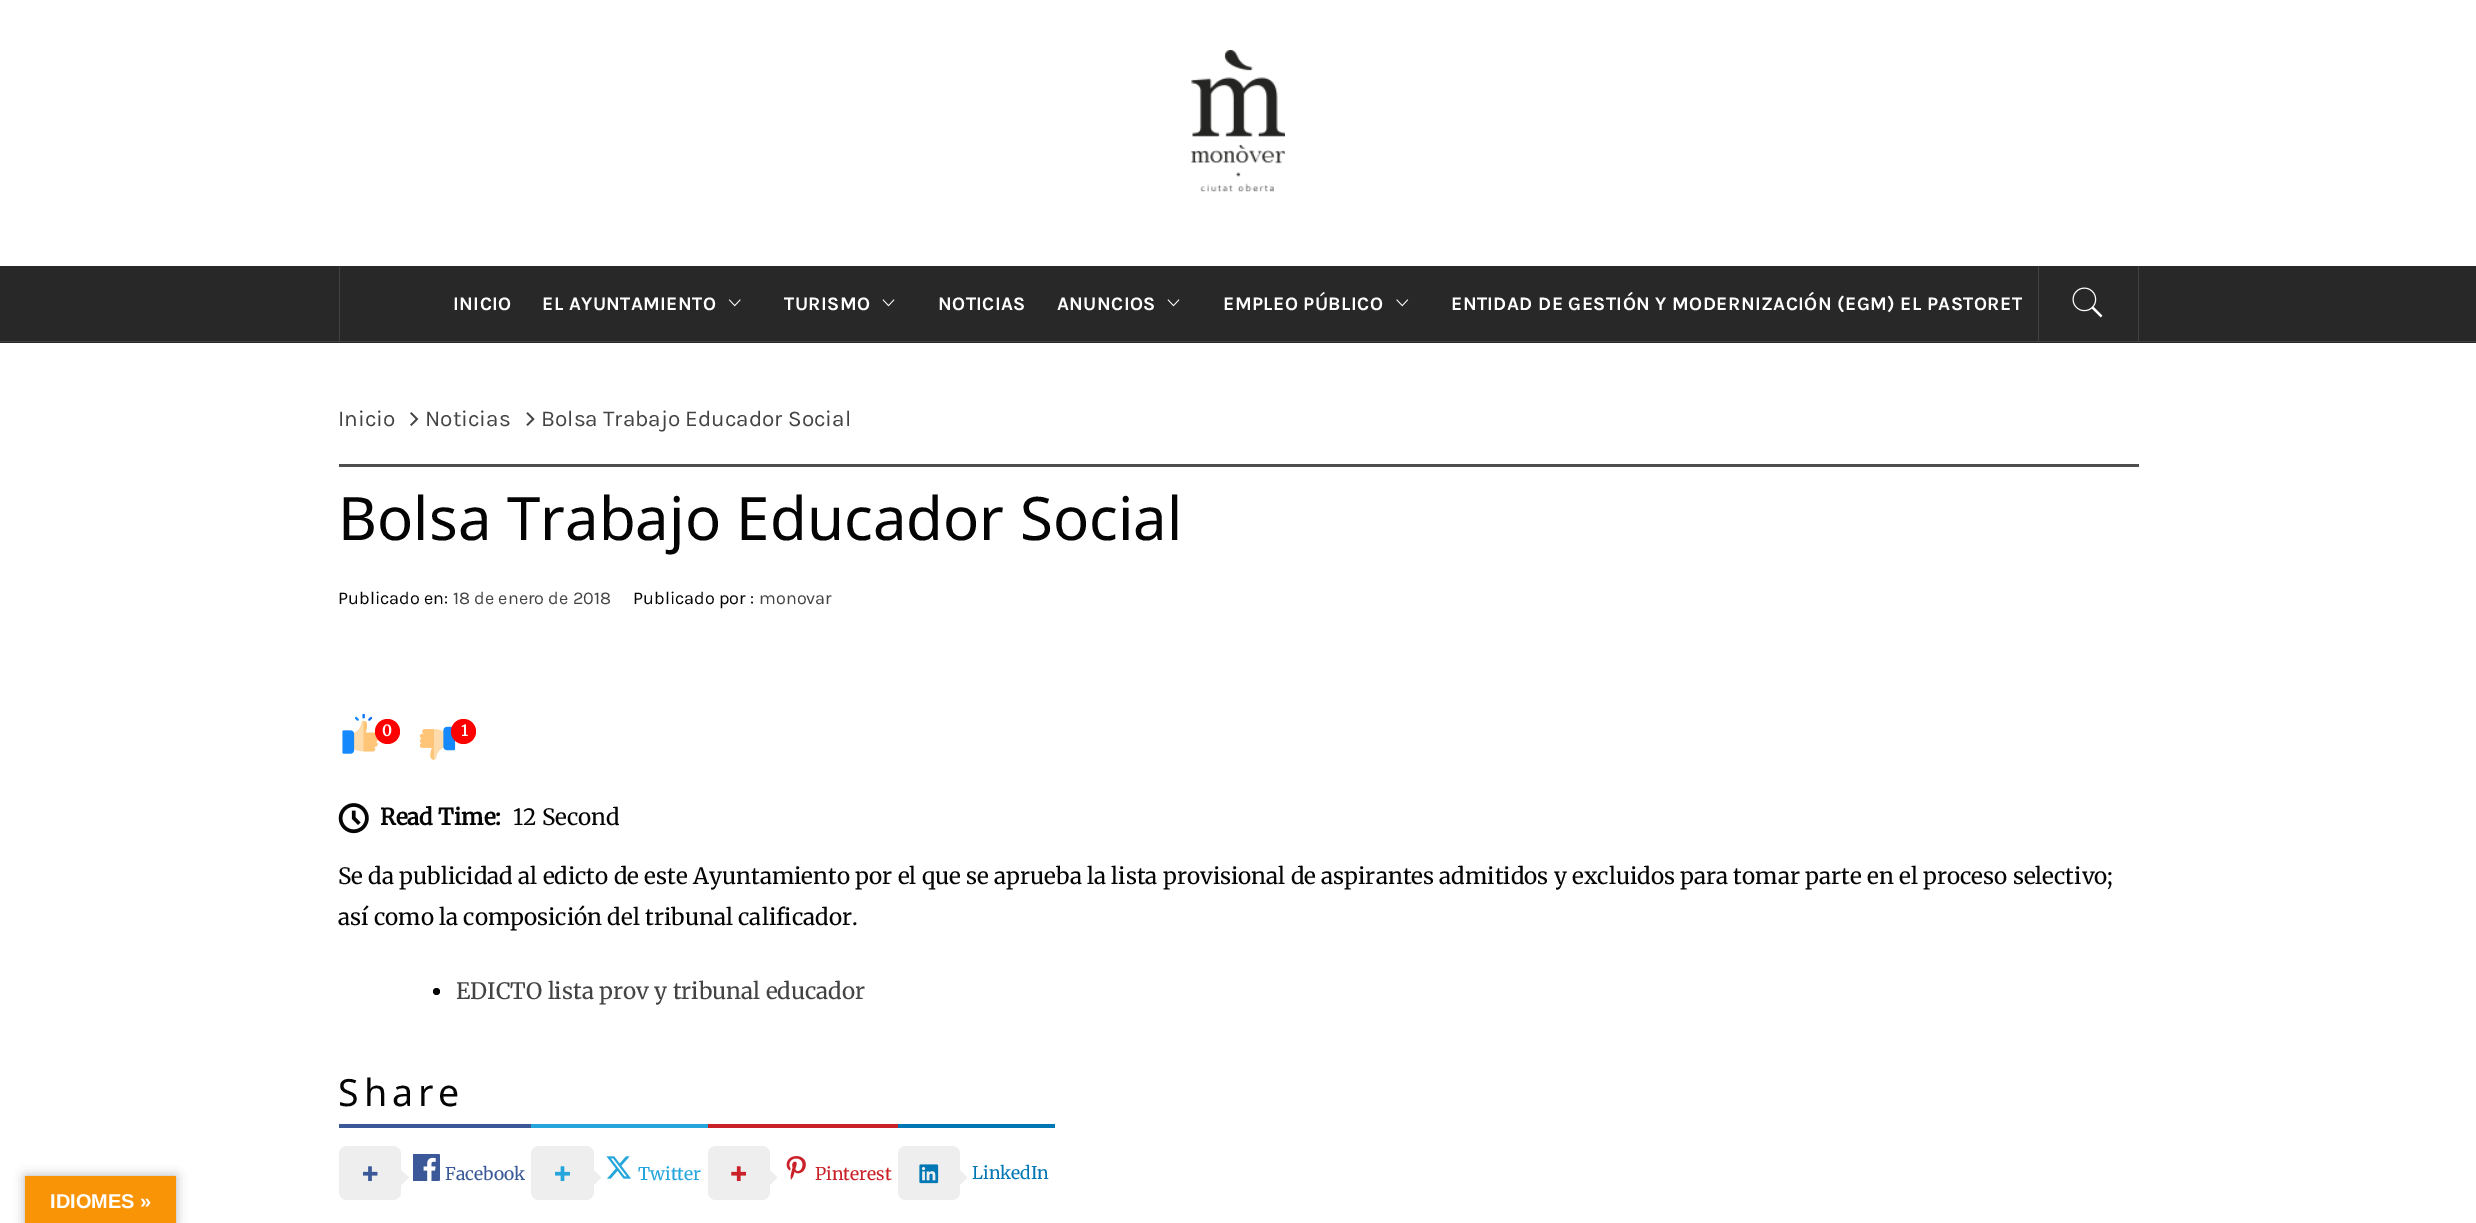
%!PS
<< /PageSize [2476 1223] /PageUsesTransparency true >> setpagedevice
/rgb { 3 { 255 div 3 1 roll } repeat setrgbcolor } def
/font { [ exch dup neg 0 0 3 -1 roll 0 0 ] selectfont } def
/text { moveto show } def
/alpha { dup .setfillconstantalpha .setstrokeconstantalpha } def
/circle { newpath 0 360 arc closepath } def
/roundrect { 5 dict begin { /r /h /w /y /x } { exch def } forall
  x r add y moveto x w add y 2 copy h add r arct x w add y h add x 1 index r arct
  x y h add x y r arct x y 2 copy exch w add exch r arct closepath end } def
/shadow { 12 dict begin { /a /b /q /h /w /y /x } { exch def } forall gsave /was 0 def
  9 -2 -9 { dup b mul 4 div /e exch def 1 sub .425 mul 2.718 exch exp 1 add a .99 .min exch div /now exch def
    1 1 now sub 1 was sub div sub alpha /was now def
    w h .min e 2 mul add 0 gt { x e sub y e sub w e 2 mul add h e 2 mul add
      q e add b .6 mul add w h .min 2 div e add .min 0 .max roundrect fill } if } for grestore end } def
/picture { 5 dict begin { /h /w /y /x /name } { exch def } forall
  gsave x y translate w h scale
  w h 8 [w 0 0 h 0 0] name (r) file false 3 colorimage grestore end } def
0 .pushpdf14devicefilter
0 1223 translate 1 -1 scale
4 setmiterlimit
255 255 255 rgb
0 0 2476 1223 rectfill
(img_01.rgb) 1191 50 94 142 picture
40 40 40 rgb
0 266 2476 77 rectfill
66 66 66 rgb
0 341 2476 1 rectfill
2138 266 1 75 rectfill
339 266 1 75 rectfill
(img_02.rgb) 728 299 13 8 picture
(img_03.rgb) 882 299 13 8 picture
(img_03.rgb) 1167 299 13 8 picture
(img_04.rgb) 1396 299 13 8 picture
2038 266 1 75 rectfill
(img_05.rgb) 2072 287 31 31 picture
78 78 78 rgb
339 464 1800 3 rectfill
(img_06.rgb) 410 412 9 14 picture
(img_07.rgb) 526 412 9 14 picture
(img_08.rgb) 342 714 36 40 picture
255 0 0 rgb
387.5 731.5 12.5 circle fill
(img_09.rgb) 419 726 37 34 picture
463.5 731.5 12.5 circle fill
(img_10.rgb) 338 803 31 31 picture
4 4 4 rgb
436.5 991.5 3.5 circle fill
59 89 152 rgb
339 1124 192 4 rectfill
238 238 238 rgb
339 1146 62 54 8 roundrect fill
(img_11.rgb) 363 1166 15 15 picture
401 1185 moveto 0 -15 rlineto 8 7.5 rlineto closepath fill
(img_12.rgb) 413 1154 27 27 picture
36 165 219 rgb
531 1124 177 4 rectfill
238 238 238 rgb
531 1146 63 54 8 roundrect fill
(img_13.rgb) 555 1166 15 15 picture
594 1185 moveto 0 -15 rlineto 7 7.5 rlineto closepath fill
(img_14.rgb) 606 1156 25 23 picture
202 33 40 rgb
708 1124 190 4 rectfill
238 238 238 rgb
708 1146 62 54 8 roundrect fill
(img_15.rgb) 731 1166 15 15 picture
770 1185 moveto 0 -15 rlineto 7.5 7.5 rlineto closepath fill
(img_16.rgb) 786 1156 20 24 picture
0 119 181 rgb
898 1124 157 4 rectfill
238 238 238 rgb
898 1146 62 54 8 roundrect fill
(img_17.rgb) 919 1164 20 20 picture
960 1185 moveto 0 -15 rlineto 7.5 7.5 rlineto closepath fill
0 0 0 rgb
25 1176 151 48 0 5.5 0.3 shadow
248 148 6 rgb
25 1176 151 47 rectfill
/Karla-Bold 19.1 font
255 255 255 rgb
453 310 moveto 0.4 0 (INICIO) ashow
542 310 moveto 0.4 0 (EL AYUNTAMIENTO) ashow
784 310 moveto 0.4 0 (TURISMO) ashow
938 310 moveto 0.4 0 (NOTICIAS) ashow
1057 310 moveto 0.4 0 (ANUNCIOS) ashow
1223 310 moveto 0.4 0 (EMPLEO PÚBLICO) ashow
1451 310 moveto 0.4 0 (ENTIDAD DE GESTIÓN Y MODERNIZACIÓN \(EGM\) EL PASTORET) ashow
/Karla-Regular 22.5 font
67 67 67 rgb
(Inicio) 338 426 text
(Noticias) 425 426 text
(Bolsa Trabajo Educador Social) 541 426 text
/NotoSans-Regular 60 font
4 4 4 rgb
(Bolsa Trabajo Educador Social) 338 540 text
/Karla-Regular 18 font
(Publicado en:) 338 604 text
67 67 67 rgb
(18 de enero de 2018) 453 604 text
4 4 4 rgb
(Publicado por :) 633 604 text
67 67 67 rgb
(monovar) 759 604 text
/Merriweather-Bold 15 font
255 255 255 rgb
(0) 382 736 text
(1) 461 736 text
/Merriweather-Bold 22.5 font
4 4 4 rgb
(Read Time:) 380 825 text
/Merriweather-Light 22.5 font
(12 Second) 513 825 text
(Se da publicidad al edicto de este Ayuntamiento por el que se aprueba la lista provisional de aspirantes admitidos y excluidos para tomar parte en el proceso selectivo;) 338 884 text
(así como la composición del tribunal calificador.) 338 925 text
67 67 67 rgb
(EDICTO lista prov y tribunal educador) 456 999 text
/NotoSans-Regular 37.5 font
4 4 4 rgb
338 1106 moveto 5 0 (Share) ashow
/Merriweather-Light 17.5 font
59 89 152 rgb
(Facebook) 445 1180 text
36 165 219 rgb
(Twitter) 638 1180 text
202 33 40 rgb
(Pinterest) 815 1180 text
0 119 181 rgb
(LinkedIn) 972 1179 text
/LiberationSans-Bold 20 font
255 255 255 rgb
(IDIOMES ») 50 1208 text
.poppdf14devicefilter showpage
